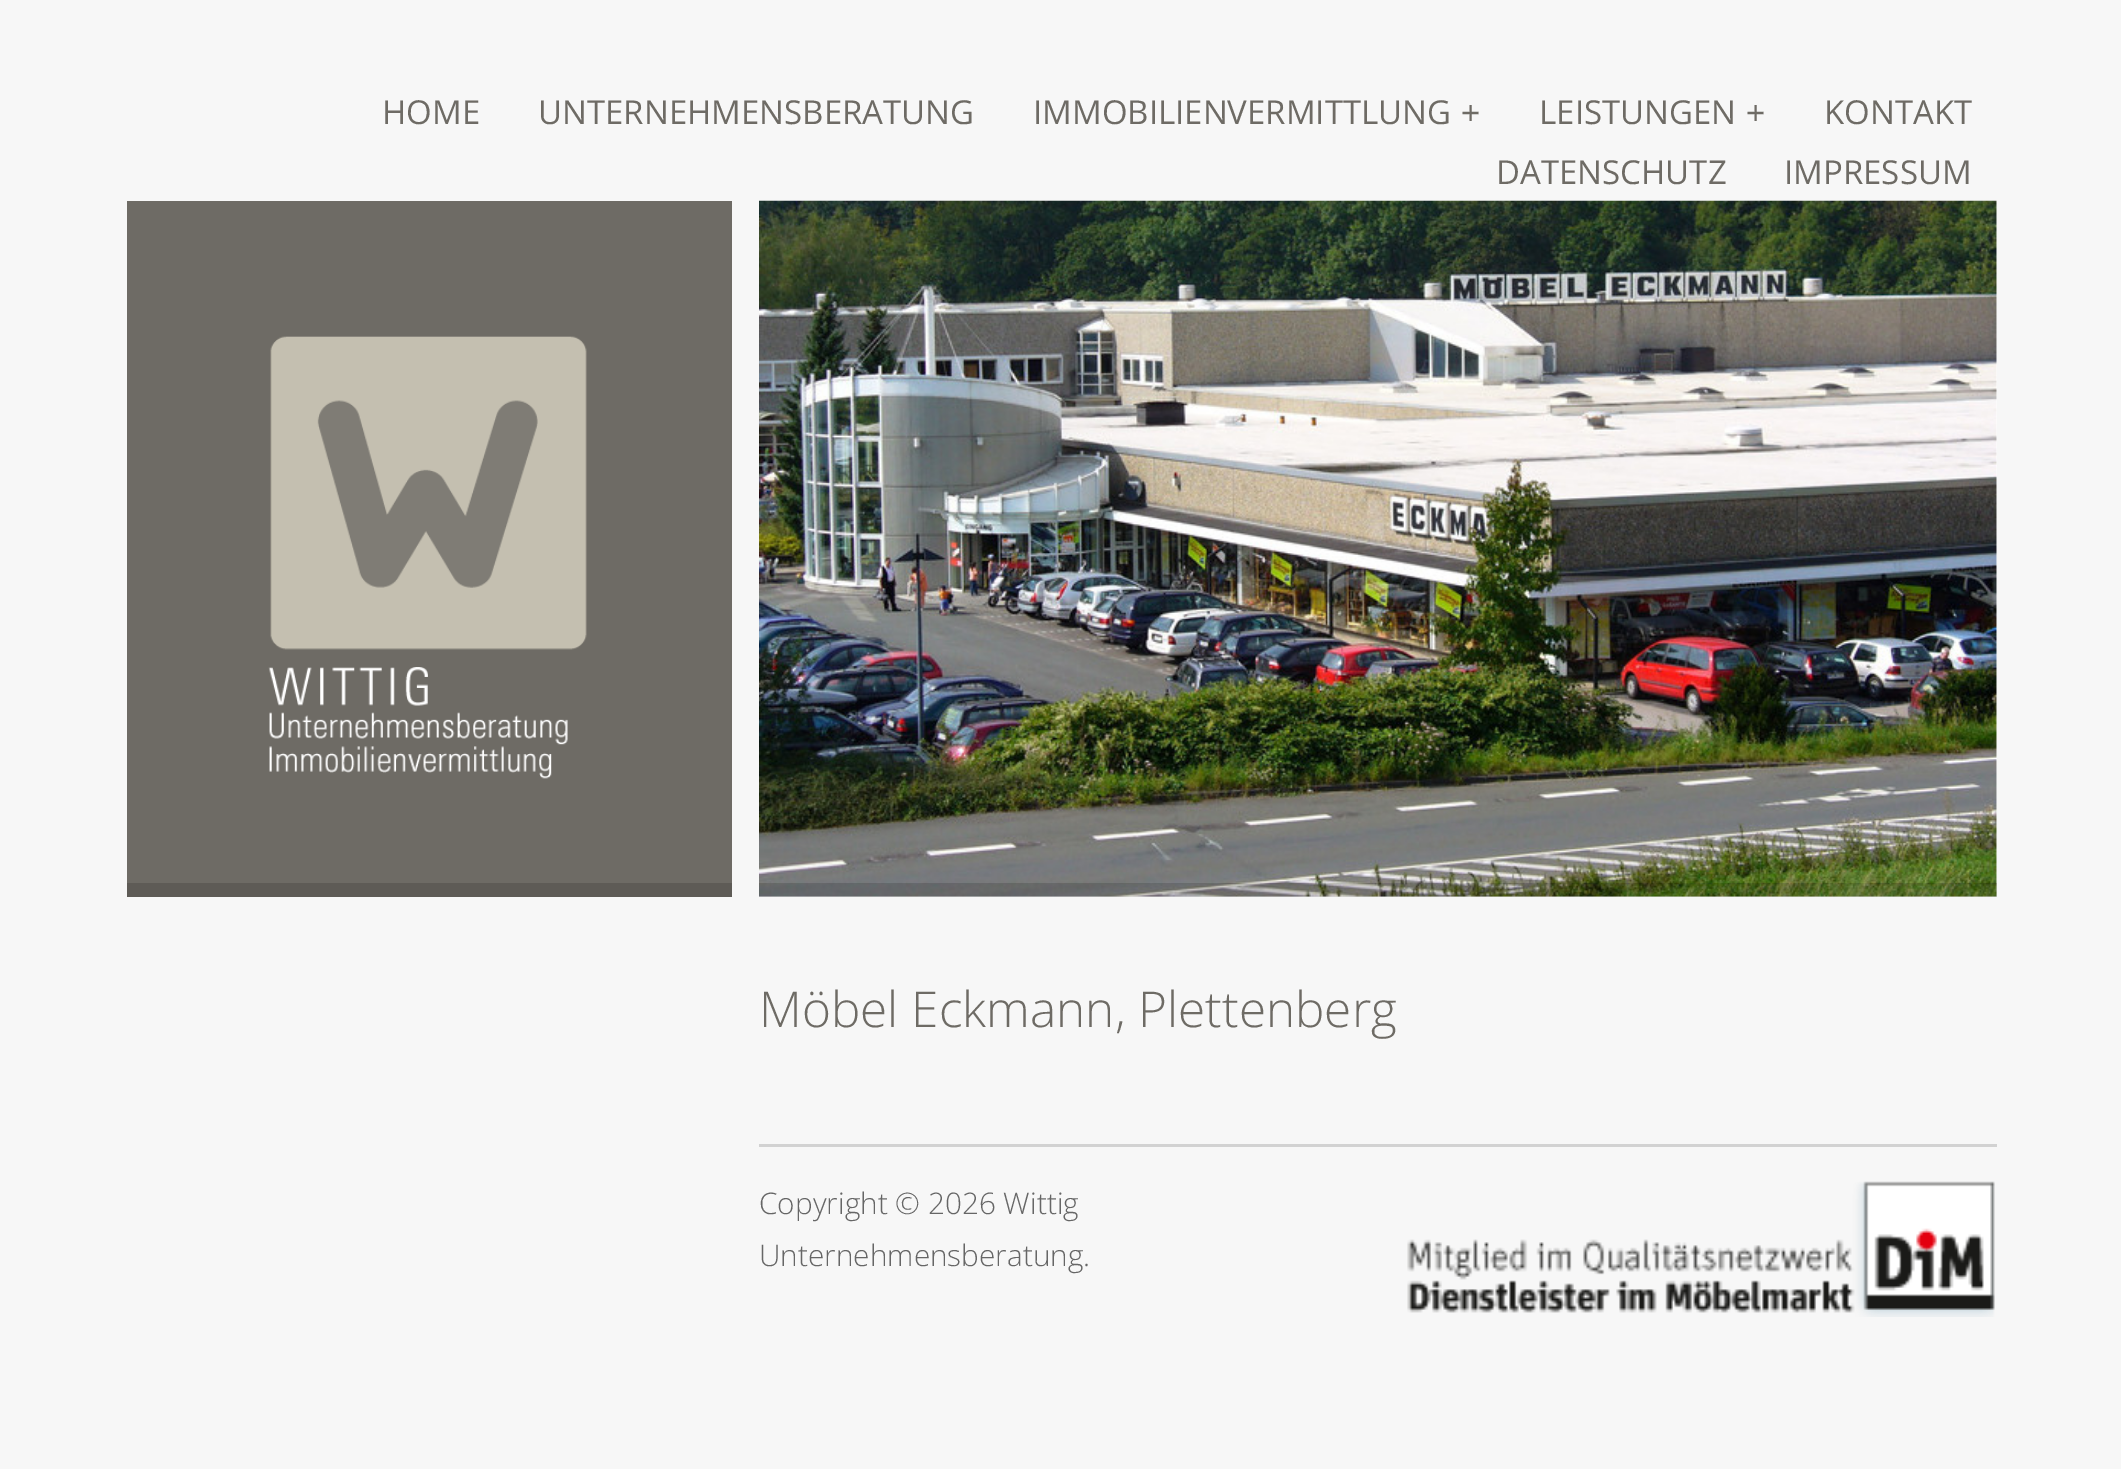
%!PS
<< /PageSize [2121 1469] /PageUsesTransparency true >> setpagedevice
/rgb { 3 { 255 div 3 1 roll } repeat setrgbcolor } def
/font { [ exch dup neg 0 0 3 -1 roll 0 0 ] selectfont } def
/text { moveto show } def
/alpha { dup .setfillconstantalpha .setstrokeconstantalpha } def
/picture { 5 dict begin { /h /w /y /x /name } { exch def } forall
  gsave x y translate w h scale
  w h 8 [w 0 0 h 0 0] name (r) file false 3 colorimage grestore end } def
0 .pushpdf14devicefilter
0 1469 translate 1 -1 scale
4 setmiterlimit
247 247 247 rgb
0 0 2121 1469 rectfill
110 107 101 rgb
127 201 605 682 rectfill
94 91 86 rgb
127 883 605 14 rectfill
(img_01.rgb) 268 336 319 443 picture
255 255 255 rgb
759 201 1238 696 rectfill
(img_02.rgb) 759 200 1238 697 picture
0.15 alpha
0 0 0 rgb
759 883 1238 14 rectfill
1 alpha
210 210 210 rgb
759 1144 1238 3 rectfill
(img_03.rgb) 1407 1181 588 136 picture
/OpenSans-Regular 33 font
110 107 101 rgb
(HOME) 382 124 text
(UNTERNEHMENSBERATUNG) 538 124 text
(IMMOBILIENVERMITTLUNG) 1033 124 text
/LiberationSans-Regular 33 font
(+) 1461 124 text
/OpenSans-Regular 33 font
(LEISTUNGEN) 1539 124 text
/LiberationSans-Regular 33 font
(+) 1746 124 text
/OpenSans-Regular 33 font
(KONTAKT) 1824 124 text
(DATENSCHUTZ) 1496 184 text
(IMPRESSUM) 1784 184 text
/OpenSans-Light 49.5 font
(Möbel Eckmann, Plettenberg) 759 1027 text
/OpenSans-Light 29.75 font
102 102 102 rgb
(Copyright © 2026 Wittig) 759 1214 text
(Unternehmensberatung.) 759 1266 text
.poppdf14devicefilter showpage
